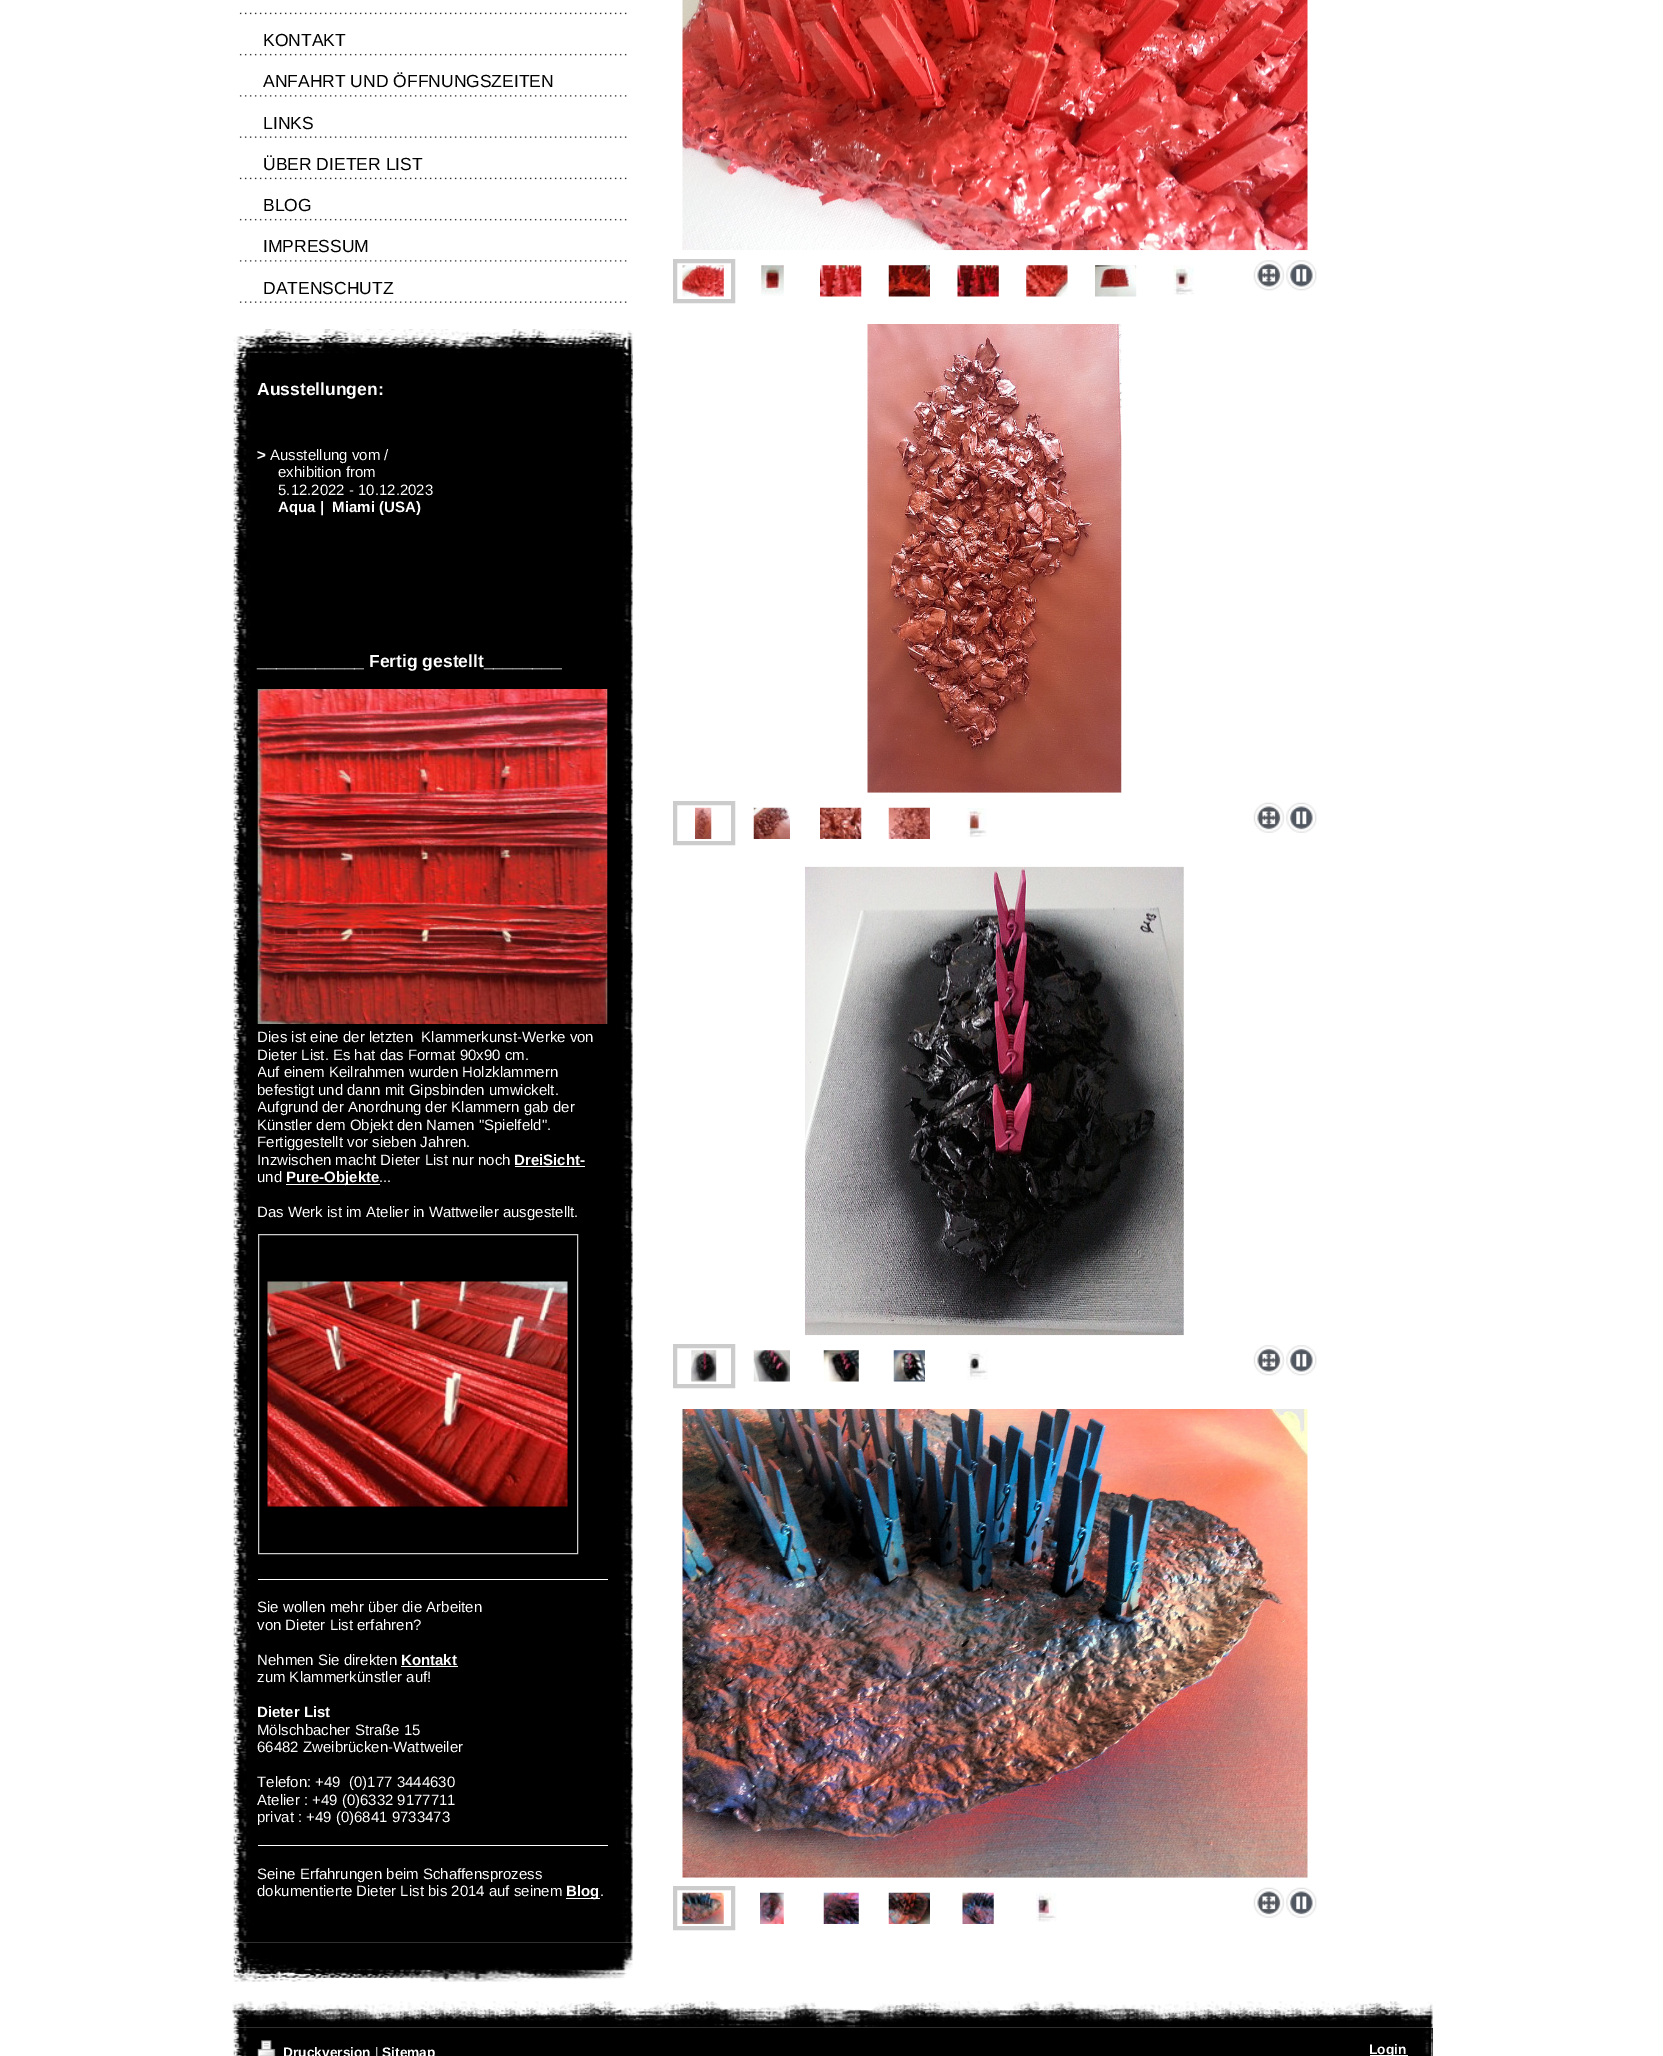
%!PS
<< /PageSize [1663 2056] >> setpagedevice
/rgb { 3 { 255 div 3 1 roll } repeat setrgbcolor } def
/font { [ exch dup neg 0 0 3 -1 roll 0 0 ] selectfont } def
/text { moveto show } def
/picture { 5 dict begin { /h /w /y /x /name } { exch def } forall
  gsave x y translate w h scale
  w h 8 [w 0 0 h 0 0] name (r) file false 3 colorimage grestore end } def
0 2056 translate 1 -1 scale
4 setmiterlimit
255 255 255 rgb
0 0 1663 2056 rectfill
(img_06.rgb) 233 354 400 1589 picture
(img_01.rgb) 233 329 400 50 picture
(img_02.rgb) 239 301 388 2 picture
(img_03.rgb) 239 12 388 3 picture
(img_04.rgb) 239 53 388 3 picture
(img_05.rgb) 239 95 388 2 picture
(img_02.rgb) 239 136 388 2 picture
(img_03.rgb) 239 177 388 3 picture
(img_04.rgb) 239 218 388 3 picture
(img_05.rgb) 239 260 388 2 picture
(img_07.rgb) 257 689 351 335 picture
515 1166 70 1 rectfill
286 1184 94 1 rectfill
204 204 204 rgb
258.5 1234.5 319 319 rectstroke
(img_08.rgb) 267 1281 301 226 picture
255 255 255 rgb
258 1579 350 1 rectfill
401 1666 57 1 rectfill
258 1845 350 1 rectfill
566 1898 34 1 rectfill
(img_09.rgb) 233 1942 400 40 picture
(img_10.rgb) 682 0 626 251 picture
204 204 204 rgb
4 setlinewidth
675 261 58 40 rectstroke
(img_11.rgb) 682 265 42 32 picture
(img_12.rgb) 761 265 23 31 picture
(img_13.rgb) 820 265 42 32 picture
(img_14.rgb) 888 265 42 32 picture
(img_15.rgb) 957 265 42 32 picture
(img_16.rgb) 1026 265 42 32 picture
(img_17.rgb) 1095 265 42 32 picture
(img_18.rgb) 1173 265 21 30 picture
(img_19.rgb) 1253 260 32 31 picture
(img_20.rgb) 1286 260 31 31 picture
(img_21.rgb) 867 324 255 469 picture
675 803 58 40 rectstroke
(img_22.rgb) 695 807 17 32 picture
(img_23.rgb) 753 807 37 32 picture
(img_24.rgb) 820 807 42 32 picture
(img_25.rgb) 888 807 42 32 picture
(img_26.rgb) 967 808 20 30 picture
(img_27.rgb) 1253 802 32 31 picture
(img_28.rgb) 1286 802 31 31 picture
(img_29.rgb) 805 866 379 470 picture
675 1346 58 40 rectstroke
(img_30.rgb) 691 1350 26 32 picture
(img_31.rgb) 753 1350 37 32 picture
(img_32.rgb) 823 1350 36 32 picture
(img_33.rgb) 893 1350 32 32 picture
(img_34.rgb) 967 1350 21 30 picture
(img_19.rgb) 1253 1345 32 31 picture
(img_20.rgb) 1286 1345 31 31 picture
(img_35.rgb) 682 1409 626 469 picture
675 1888 58 40 rectstroke
(img_36.rgb) 682 1892 42 32 picture
(img_37.rgb) 760 1892 24 32 picture
(img_38.rgb) 823 1892 36 32 picture
(img_39.rgb) 888 1892 42 32 picture
(img_40.rgb) 962 1892 32 32 picture
(img_41.rgb) 1036 1893 21 29 picture
(img_27.rgb) 1253 1887 32 31 picture
(img_28.rgb) 1286 1887 31 31 picture
(img_42.rgb) 232 2001 1201 27 picture
0 0 0 rgb
355 2028 1078 28 rectfill
(img_43.rgb) 233 2027 1200 29 picture
(img_44.rgb) 257 2040 19 16 picture
255 255 255 rgb
1370 2055 38 1 rectfill
/LiberationSans-Regular 17.5 font
0 0 0 rgb
(KONTAKT) 263 46 text
(ANFAHRT UND ÖFFNUNGSZEITEN) 263 87 text
(LINKS) 263 129 text
(ÜBER DIETER LIST) 263 170 text
(BLOG) 263 211 text
(IMPRESSUM) 263 252 text
(DATENSCHUTZ) 263 294 text
/LiberationSans-Bold 17.5 font
255 255 255 rgb
(Ausstellungen:) 257 395 text
/LiberationSans-Bold 15 font
(>) 257 460 text
/LiberationSans-Regular 15 font
(Ausstellung vom /) 270 460 text
(exhibition from) 278 477 text
(5.12.2022 - 10.12.2023) 278 495 text
/LiberationSans-Bold 15 font
(Aqua |  Miami \(USA\)) 278 512 text
/LiberationSans-Bold 17.5 font
(___________ Fertig gestellt________) 257 667 text
/LiberationSans-Regular 15 font
(Dies ist eine der letzten  Klammerkunst-Werke von) 257 1042 text
(Dieter List. Es hat das Format 90x90 cm.) 257 1060 text
gsave
258 684 350 537 rectclip
(Auf einem Keilrahmen wurden Holzklammern) 257 1077 text
(befestigt und dann mit Gipsbinden umwickelt.) 257 1095 text
(Aufgrund der Anordnung der Klammern gab der) 257 1112 text
grestore
(Künstler dem Objekt den Namen "Spielfeld".) 257 1130 text
(Fertiggestellt vor sieben Jahren.) 257 1147 text
(Inzwischen macht Dieter List nur noch) 257 1165 text
/LiberationSans-Bold 15 font
(DreiSicht-) 514 1165 text
gsave
258 684 350 537 rectclip
/LiberationSans-Regular 15 font
(und) 257 1182 text
grestore
(Pure-Objekte) 286 1182 text
/LiberationSans-Regular 15 font
(...) 379 1182 text
(Das Werk ist im Atelier in Wattweiler ausgestellt.) 257 1217 text
(Sie wollen mehr über die Arbeiten) 257 1612 text
(von Dieter List erfahren?) 257 1630 text
(Nehmen Sie direkten) 257 1665 text
/LiberationSans-Bold 15 font
(Kontakt) 401 1665 text
/LiberationSans-Regular 15 font
(zum Klammerkünstler auf!) 257 1682 text
/LiberationSans-Bold 15 font
(Dieter List) 257 1717 text
/LiberationSans-Regular 15 font
(Mölschbacher Straße 15) 257 1735 text
(66482 Zweibrücken-Wattweiler) 257 1752 text
(Telefon: +49  \(0\)177 3444630) 257 1787 text
(Atelier : +49 \(0\)6332 9177711) 257 1805 text
(privat : +49 \(0\)6841 9733473) 257 1822 text
(Seine Erfahrungen beim Schaffensprozess) 257 1879 text
(dokumentierte Dieter List bis 2014 auf seinem) 257 1896 text
/LiberationSans-Bold 15 font
(Blog) 566 1896 text
/LiberationSans-Regular 15 font
(.) 600 1896 text
/LiberationSans-Bold 13.75 font
(Druckversion) 283 2057 text
/LiberationSans-Regular 13.75 font
(|) 375 2057 text
/LiberationSans-Bold 13.75 font
(Sitemap) 382 2057 text
(Login) 1369 2054 text
showpage
